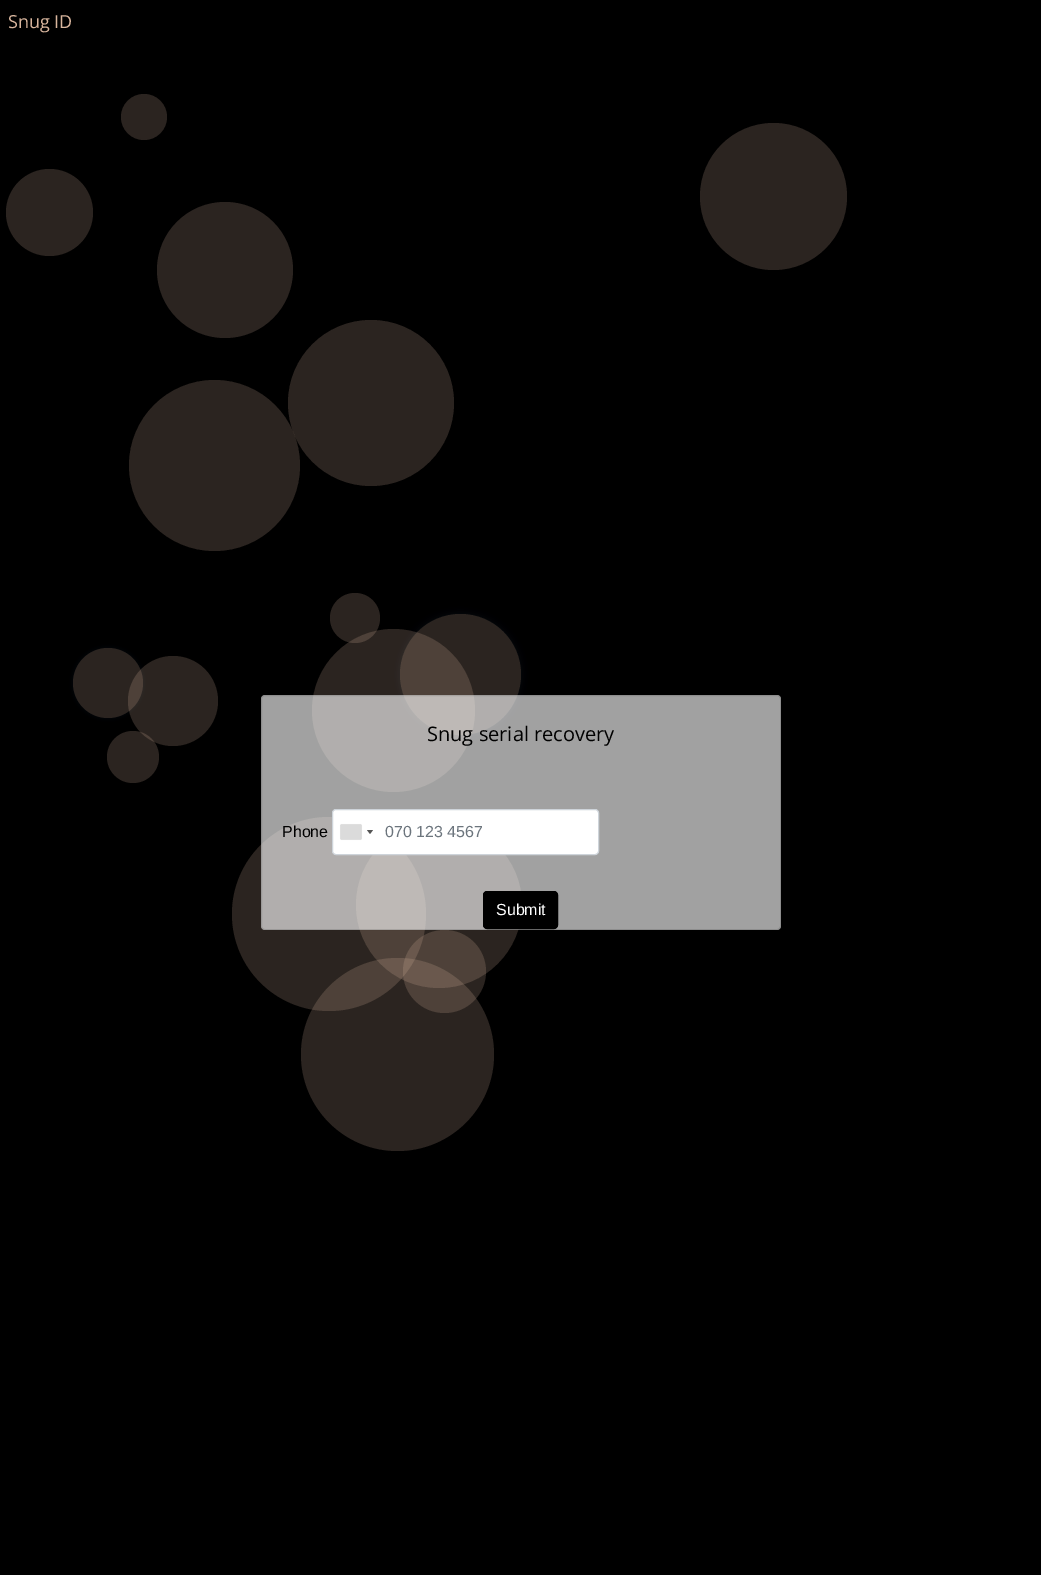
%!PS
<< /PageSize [1041 1575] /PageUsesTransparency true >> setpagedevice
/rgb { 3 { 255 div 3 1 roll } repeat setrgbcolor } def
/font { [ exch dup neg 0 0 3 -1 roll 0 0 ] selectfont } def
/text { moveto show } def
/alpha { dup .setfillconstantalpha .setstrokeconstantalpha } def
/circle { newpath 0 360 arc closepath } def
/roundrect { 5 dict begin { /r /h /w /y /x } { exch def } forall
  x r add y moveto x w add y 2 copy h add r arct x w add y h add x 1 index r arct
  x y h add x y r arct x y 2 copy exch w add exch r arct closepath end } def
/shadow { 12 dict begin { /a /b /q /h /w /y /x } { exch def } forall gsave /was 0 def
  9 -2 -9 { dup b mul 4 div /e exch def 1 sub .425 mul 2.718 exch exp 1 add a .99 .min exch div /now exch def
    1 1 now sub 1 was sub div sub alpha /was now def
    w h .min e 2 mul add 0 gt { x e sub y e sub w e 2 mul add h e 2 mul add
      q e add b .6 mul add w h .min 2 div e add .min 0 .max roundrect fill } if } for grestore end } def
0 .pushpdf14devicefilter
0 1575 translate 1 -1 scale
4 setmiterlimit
0 0 0 rgb
0 0 1041 1575 rectfill
43 36 32 rgb
144 117 23 circle fill
49.5 212.5 43.5 circle fill
371 403 83 circle fill
225 270 68 circle fill
773.5 196.5 73.5 circle fill
0.2 alpha
217 182 158 rgb
214.5 465.5 85.5 circle fill
1 alpha
19 35 46 rgb
400 614 121 121 60.5 3.5 0.32 shadow
43 36 32 rgb
460.5 674.5 60.5 circle fill
0.2 alpha
217 182 158 rgb
393.5 710.5 81.5 circle fill
355 618 25 circle fill
1 alpha
16 36 44 rgb
73 648 70 70 35 2.5 0.25 shadow
43 36 32 rgb
108 683 35 circle fill
0.2 alpha
217 182 158 rgb
173 701 45 circle fill
133 757 26 circle fill
1 alpha
43 36 32 rgb
397.5 1054.5 96.5 circle fill
0.2 alpha
217 182 158 rgb
444.5 971.5 41.5 circle fill
439 905 83 circle fill
329 914 97 circle fill
0.63 alpha
255 255 255 rgb
261 695 520 235 4 roundrect fill
0.12 alpha
0 0 0 rgb
261.5 695.5 519 234 3.5 roundrect stroke
1 alpha
255 255 255 rgb
332.5 809.5 266 45 3.5 roundrect gsave fill grestore
206 212 218 rgb
stroke
136 136 136 rgb
341 825 20 14 0 0.5 1 shadow
219 219 219 rgb
341 825 20 14 rectfill
85 85 85 rgb
367 830 moveto 6 0 rlineto -3 4 rlineto closepath fill
0 0 0 rgb
483.5 891.5 74 37 3.5 roundrect gsave fill grestore
stroke
/OpenSans-Regular 18 font
217 182 158 rgb
(Snug ID) 8 28 text
/OpenSans-Regular 20 font
0 0 0 rgb
(Snug serial recovery) 427 741 text
/LiberationSans-Regular 16 font
(Phone) 282 837 text
108 117 125 rgb
(070 123 4567) 385 837 text
255 255 255 rgb
(Submit) 496 915 text
.poppdf14devicefilter showpage
